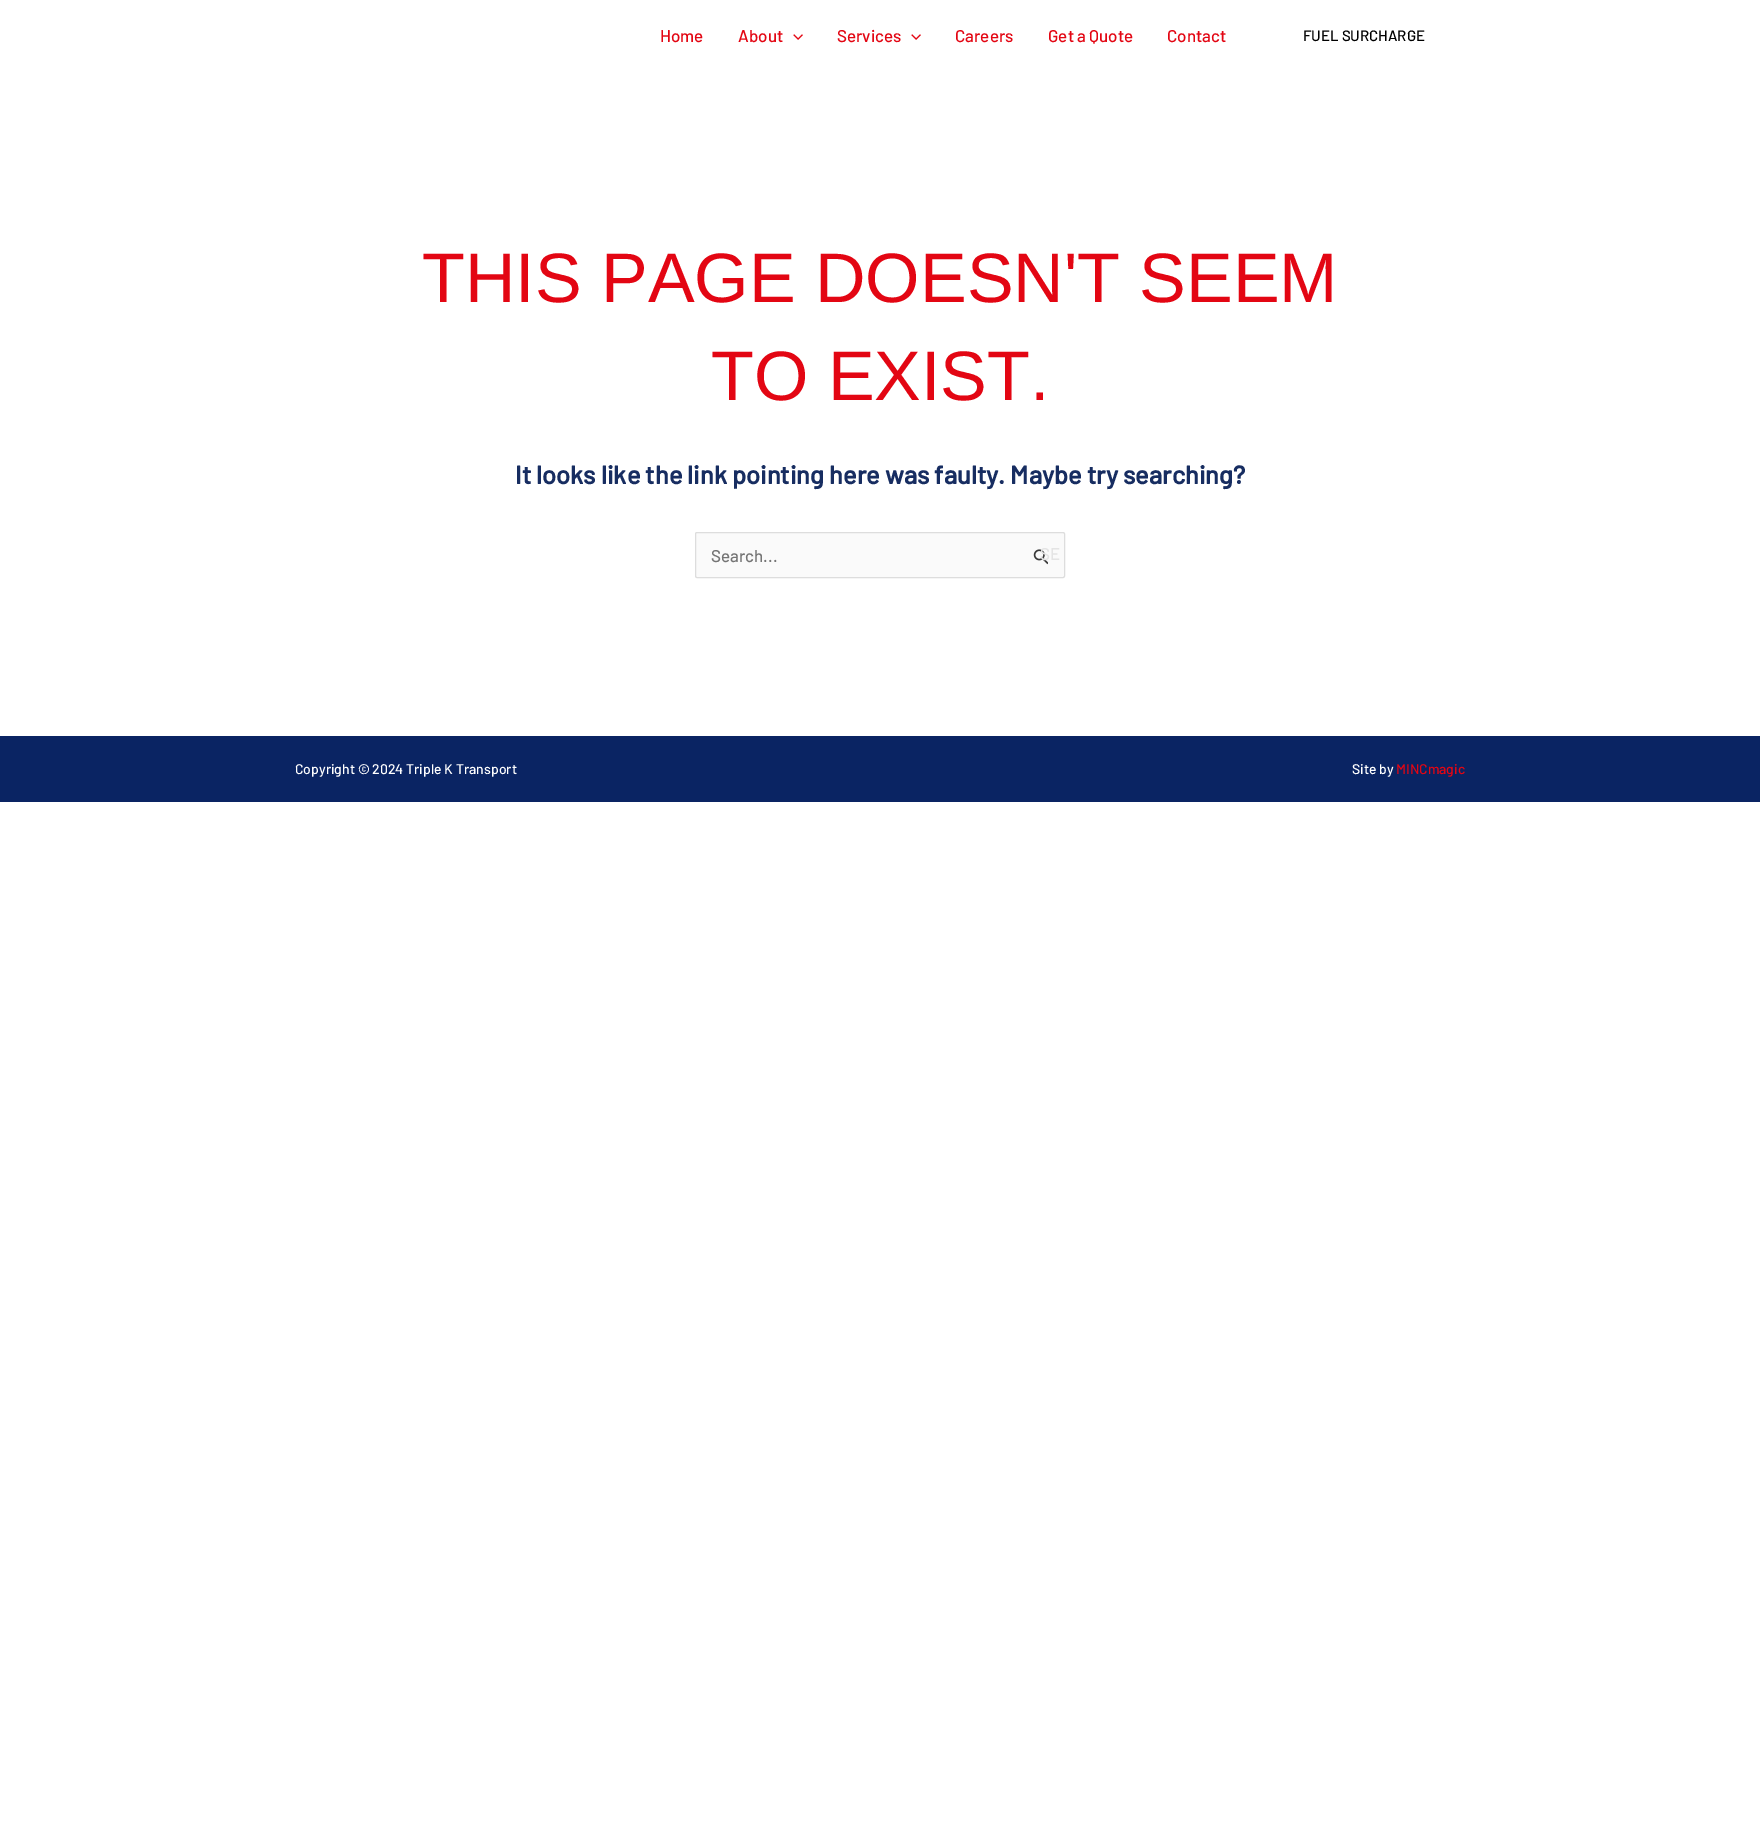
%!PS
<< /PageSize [1760 1843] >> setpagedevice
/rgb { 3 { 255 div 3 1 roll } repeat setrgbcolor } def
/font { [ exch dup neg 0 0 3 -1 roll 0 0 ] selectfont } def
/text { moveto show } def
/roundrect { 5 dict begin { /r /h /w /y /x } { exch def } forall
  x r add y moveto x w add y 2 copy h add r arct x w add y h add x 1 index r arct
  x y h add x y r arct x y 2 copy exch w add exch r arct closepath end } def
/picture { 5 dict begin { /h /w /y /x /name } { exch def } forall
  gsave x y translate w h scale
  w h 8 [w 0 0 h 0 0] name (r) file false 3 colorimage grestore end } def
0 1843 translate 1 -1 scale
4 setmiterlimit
255 255 255 rgb
0 0 1760 1843 rectfill
(img_01.rgb) 793 34 10 6 picture
(img_01.rgb) 911 34 10 6 picture
250 250 250 rgb
695.5 532.5 369 45 1.5 roundrect gsave fill grestore
221 221 221 rgb
stroke
(img_02.rgb) 1033 549 15 16 picture
10 36 99 rgb
0 736 1760 66 rectfill
/Barlow-Medium 17 font
227 6 19 rgb
(Home) 660 42 text
(About) 738 42 text
(Services) 837 42 text
(Careers) 955 42 text
(Get a Quote) 1048 42 text
(Contact) 1167 42 text
/Barlow-Medium 15 font
0 0 0 rgb
(FUEL SURCHARGE) 1303 41 text
/LiberationSans-Regular 70 font
227 6 19 rgb
(THIS PAGE DOESN'T SEEM) 422 302 text
(TO EXIST.) 711 400 text
/Barlow-Bold 25.5 font
23 45 97 rgb
(It looks like the link pointing here was faulty. Maybe try searching?) 515 484 text
/Barlow-Medium 17 font
117 117 117 rgb
(Search...) 711 562 text
228 228 228 rgb
(SE) 1040 560 text
/Barlow-Medium 14 font
255 255 255 rgb
(Copyright © 2024 Triple K Transport) 295 774 text
(Site by) 1352 774 text
227 6 19 rgb
(MINCmagic) 1396 774 text
showpage
